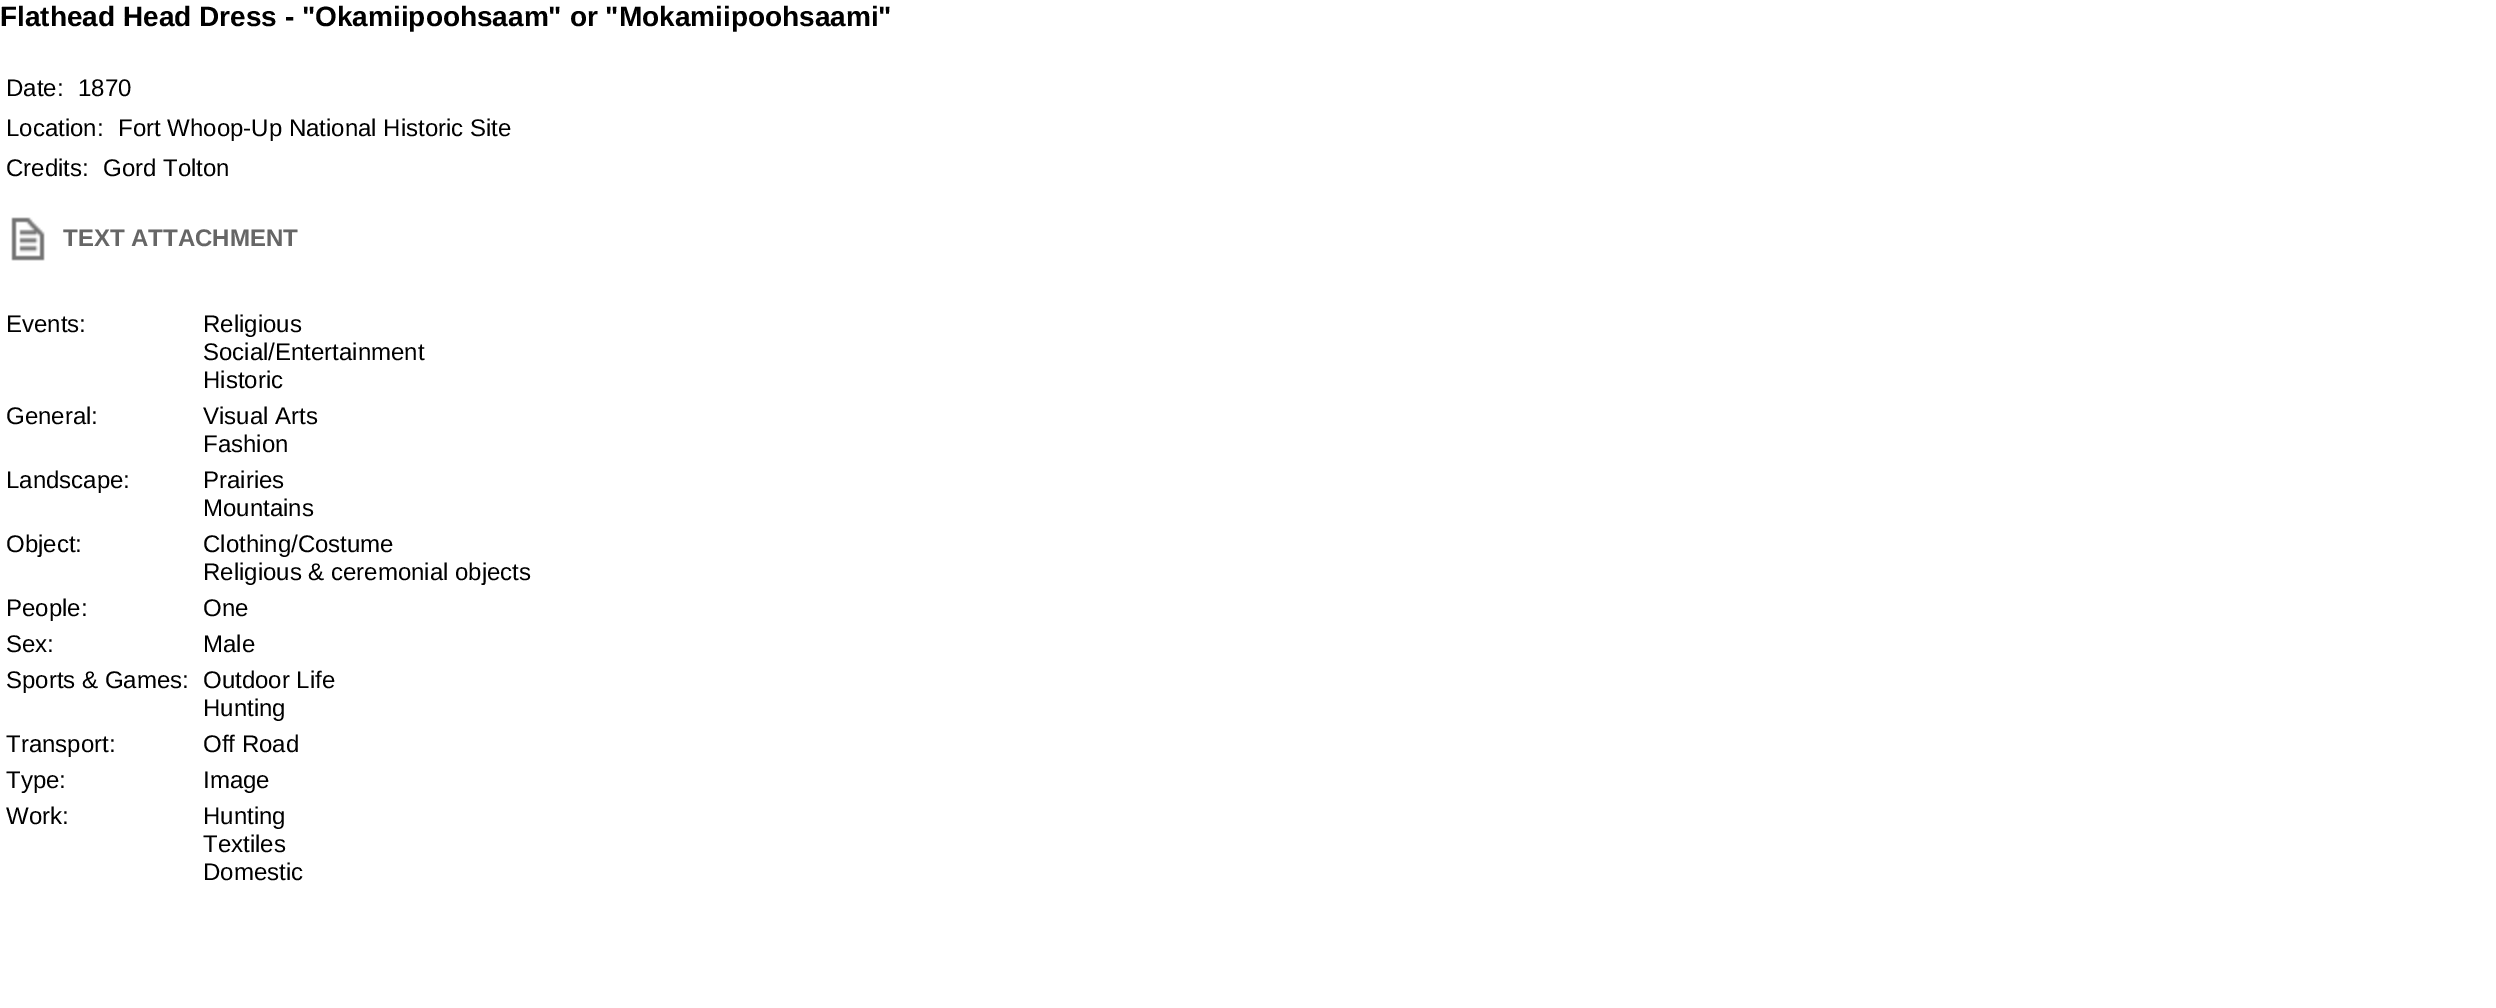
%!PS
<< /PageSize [2496 1008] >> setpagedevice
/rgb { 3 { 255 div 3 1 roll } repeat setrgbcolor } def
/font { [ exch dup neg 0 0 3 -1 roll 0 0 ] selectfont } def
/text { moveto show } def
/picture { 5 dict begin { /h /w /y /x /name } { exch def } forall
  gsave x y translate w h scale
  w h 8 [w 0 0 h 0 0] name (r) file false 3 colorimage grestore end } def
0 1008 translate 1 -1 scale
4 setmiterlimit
255 255 255 rgb
0 0 2496 1008 rectfill
(img_01.rgb) 11 217 34 44 picture
/LiberationSans-Bold 28 font
0 0 0 rgb
(Flathead Head Dress - "Okamiipoohsaam" or "Mokamiipoohsaami") 0 26 text
/LiberationSans-Regular 24 font
(Date:) 6 96 text
(1870) 78 96 text
(Location:) 6 136 text
(Fort Whoop-Up National Historic Site) 118 136 text
(Credits:) 6 176 text
(Gord Tolton) 103 176 text
/LiberationSans-Bold 24 font
102 102 102 rgb
(TEXT ATTACHMENT) 63 246 text
/LiberationSans-Regular 24 font
0 0 0 rgb
(Events:) 6 332 text
(Religious) 203 332 text
(Social/Entertainment) 203 360 text
(Historic) 203 388 text
(General:) 6 424 text
(Visual Arts) 203 424 text
(Fashion) 203 452 text
(Landscape:) 6 488 text
(Prairies) 203 488 text
(Mountains) 203 516 text
(Object:) 6 552 text
(Clothing/Costume) 203 552 text
(Religious & ceremonial objects) 203 580 text
(People:) 6 616 text
(One) 203 616 text
(Sex:) 6 652 text
(Male) 203 652 text
(Sports & Games:) 6 688 text
(Outdoor Life) 203 688 text
(Hunting) 203 716 text
(Transport:) 6 752 text
(Off Road) 203 752 text
(Type:) 6 788 text
(Image) 203 788 text
(Work:) 6 824 text
(Hunting) 203 824 text
(Textiles) 203 852 text
(Domestic) 203 880 text
showpage
